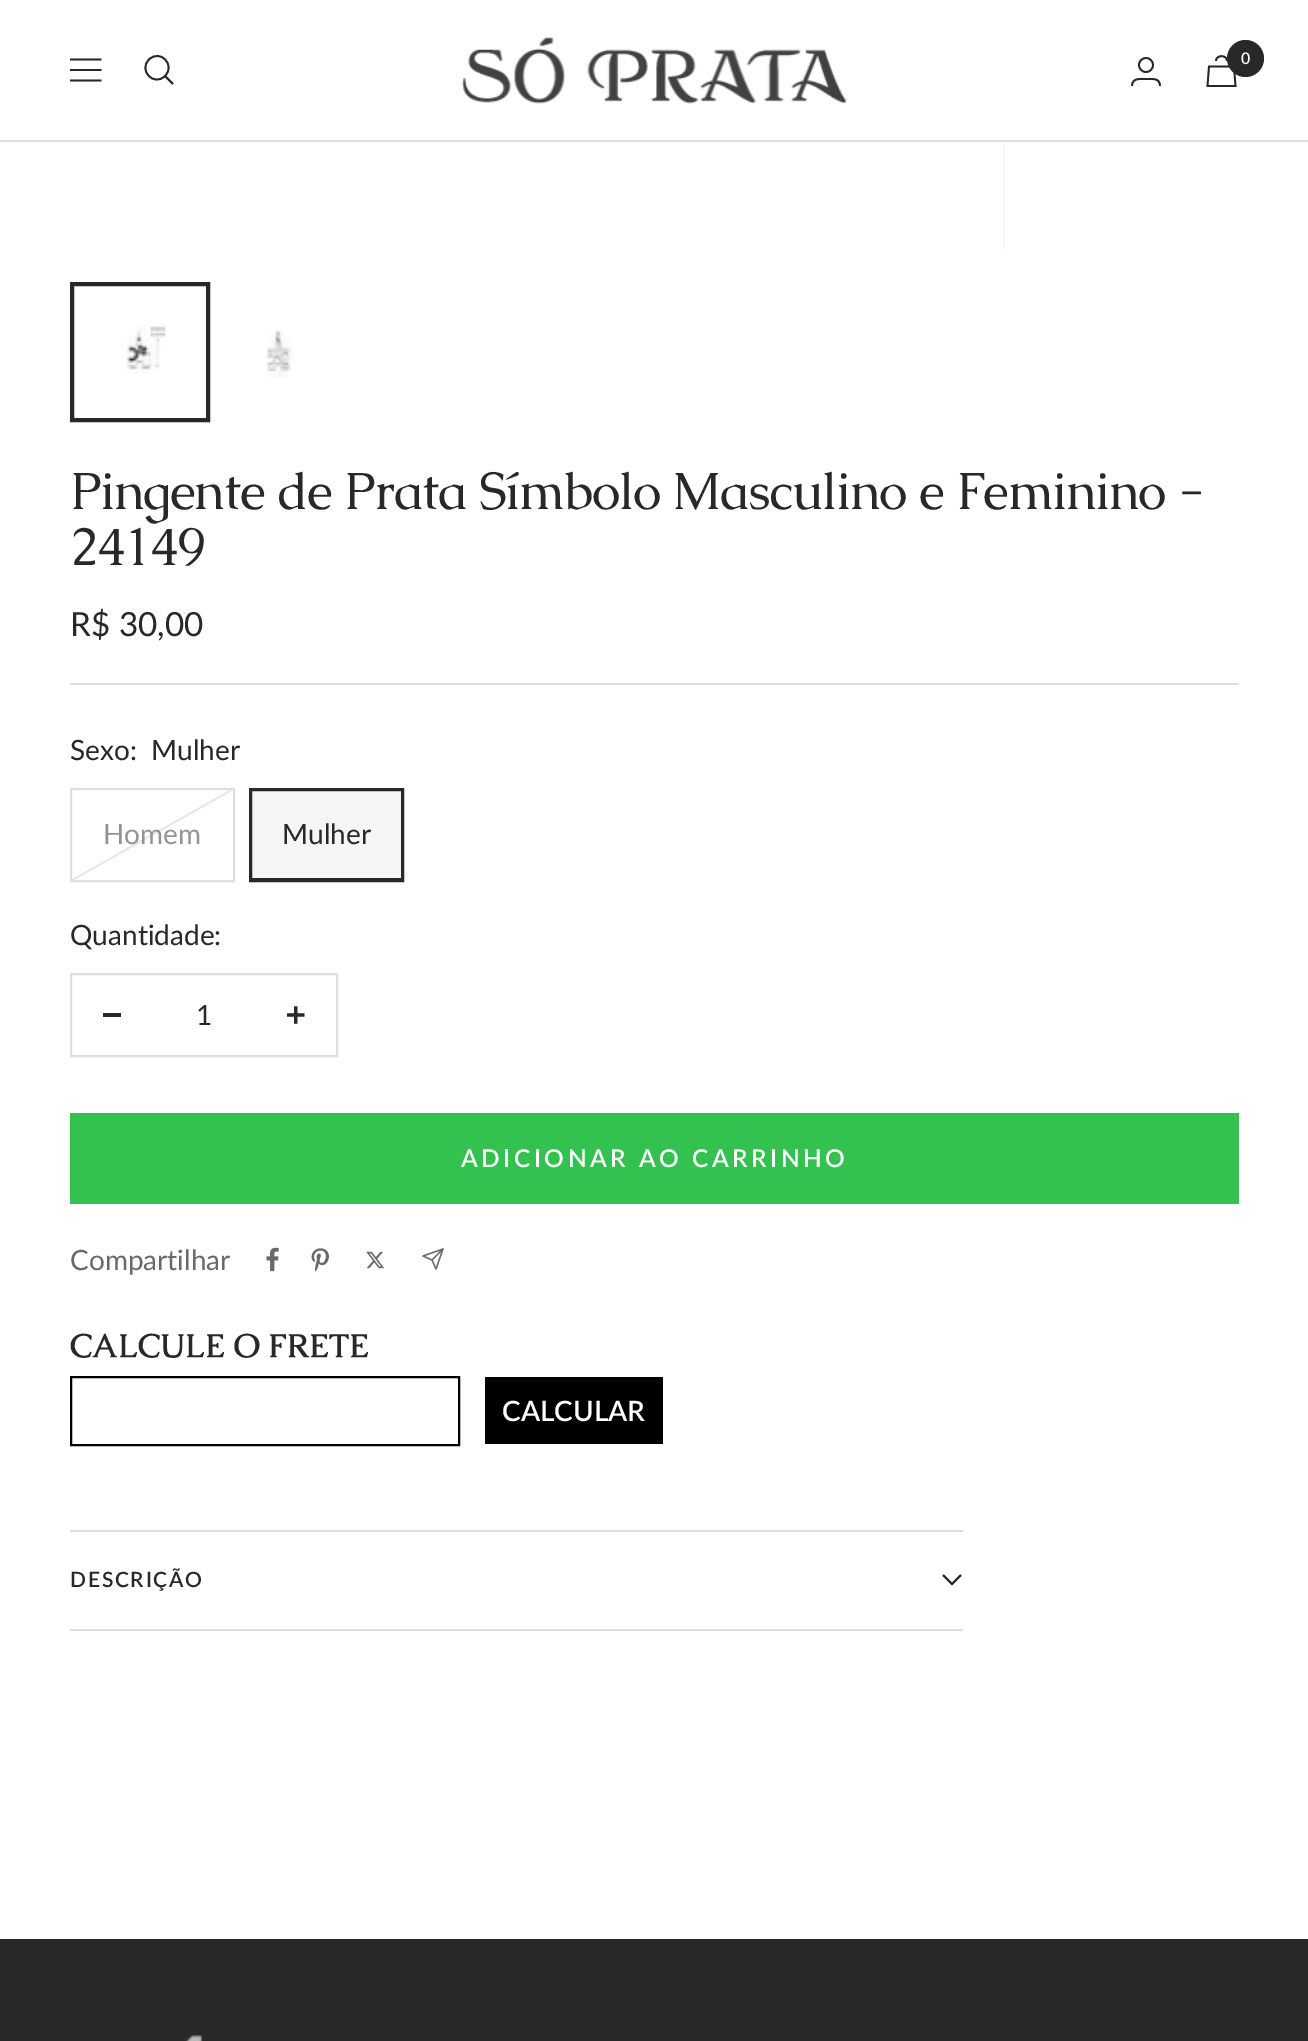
%!PS
<< /PageSize [1308 2041] >> setpagedevice
/rgb { 3 { 255 div 3 1 roll } repeat setrgbcolor } def
/font { [ exch dup neg 0 0 3 -1 roll 0 0 ] selectfont } def
/text { moveto show } def
/circle { newpath 0 360 arc closepath } def
/picture { 5 dict begin { /h /w /y /x /name } { exch def } forall
  gsave x y translate w h scale
  w h 8 [w 0 0 h 0 0] name (r) file false 3 colorimage grestore end } def
0 2041 translate 1 -1 scale
4 setmiterlimit
255 255 255 rgb
0 0 1308 2041 rectfill
223 223 223 rgb
0 140 1308 2 rectfill
40 40 40 rgb
1.8 setlinewidth
70 59.5 moveto 31.5 0 rlineto 70 80.5 moveto 31.5 0 rlineto closepath 70 70 moveto 31.5 0 rlineto closepath stroke
165 76 moveto 11 -11 -5 -27.5 -16 -16.5 rcurveto -11 11 5 27.5 16 16.5 rcurveto closepath 165 76 moveto 8 8 rlineto stroke
(img_01.rgb) 462 37 385 67 picture
1146 65 7 circle stroke
1132 86 moveto 0 -8.5 9 -7 14 -7 rcurveto 5.5 0 14 -1.5 14 7 rcurveto stroke
1209 66.5 moveto 25 0 rlineto 1.5 19.5 rlineto -28 0 rlineto closepath 1227 61 moveto 0 -6.5 -11 -6.5 -11 0 rcurveto stroke
1245.5 58.5 18.5 circle fill
245 245 245 rgb
1004 142 1 108 rectfill
(img_02.rgb) 126 323 40 51 picture
40 40 40 rgb
4 setlinewidth
72 284 136 136 rectstroke
(img_03.rgb) 266 330 27 48 picture
223 223 223 rgb
70 683 1169 2 rectfill
gsave 72 790 moveto 161 0 rlineto 0 90 rlineto -161 0 rlineto closepath clip newpath
<< /ShadingType 2 /ColorSpace /DeviceRGB /Coords [113 766 191 904] /Extend [true true] /Function << /FunctionType 3 /Domain [0 1] /Functions [<< /FunctionType 2 /Domain [0 1] /C0 [1 1 1] /C1 [1 1 1] /N 1 >> << /FunctionType 2 /Domain [0 1] /C0 [1 1 1] /C1 [0.875 0.875 0.875] /N 1 >> << /FunctionType 2 /Domain [0 1] /C0 [0.875 0.875 0.875] /C1 [1 1 1] /N 1 >> << /FunctionType 2 /Domain [0 1] /C0 [1 1 1] /C1 [1 1 1] /N 1 >>] /Bounds [0.49 0.5 0.51] /Encode [0 1 0 1 0 1 0 1] >> >> shfill grestore
2 setlinewidth
71 789 163 92 rectstroke
245 245 245 rgb
252 791 149 87 rectfill
40 40 40 rgb
250 789 153 92 rectstroke
251 790 151 89 rectstroke
223 223 223 rgb
71 974 266 82 rectstroke
40 40 40 rgb
103 1013 18 4 rectfill
(img_04.rgb) 287 1006 18 18 picture
51 194 79 rgb
70 1113 1169 91 rectfill
(img_05.rgb) 266 1247 13 25 picture
(img_06.rgb) 311 1248 18 24 picture
(img_07.rgb) 366 1251 19 18 picture
105 105 105 rgb
1.3 setlinewidth
1 setlinecap
1 setlinejoin
443 1249 moveto -7 20 rlineto -4 -9 rlineto 443 1249 moveto -20 7 rlineto 9 4 rlineto 443 1249 moveto -11 11 rlineto stroke
0 0 0 rgb
2 setlinewidth
0 setlinecap
0 setlinejoin
71 1377 388 68 rectstroke
485 1377 178 67 rectfill
223 223 223 rgb
70 1530 893 2 rectfill
70 1629 893 2 rectfill
40 40 40 rgb
1.8 setlinewidth
943 1575 moveto 9 9 rlineto 9 -9 rlineto stroke
0 1939 1308 102 rectfill
(img_08.rgb) 185 2035 18 6 picture
/Lato-SemiBold 16 font
255 255 255 rgb
(0) 1241 64 text
/Caudex-Regular 52.5 font
40 40 40 rgb
70 509 moveto -1.4 0 (Pingente de Prata Símbolo Masculino e Feminino -) ashow
70 565 moveto -1.4 0 (24149) ashow
/Lato-Regular 33.25 font
(R$ 30,00) 70 636 text
/Lato-Regular 28 font
(Sexo:) 70 760 text
(Mulher) 151 760 text
147 147 147 rgb
(Homem) 103 844 text
40 40 40 rgb
(Mulher) 282 844 text
(Quantidade:) 70 945 text
(1) 196 1025 text
/Lato-SemiBold 24.5 font
255 255 255 rgb
461 1167 moveto 3.5 0 (ADICIONAR AO CARRINHO) ashow
/Lato-Regular 28 font
105 105 105 rgb
(Compartilhar) 70 1270 text
/Caudex-Bold 32.75 font
40 40 40 rgb
(CALCULE O FRETE) 70 1357 text
/Lato-SemiBold 28 font
255 255 255 rgb
(CALCULAR) 502 1421 text
/Lato-SemiBold 21 font
40 40 40 rgb
70 1587 moveto 1.75 0 (DESCRIÇÃO) ashow
showpage
